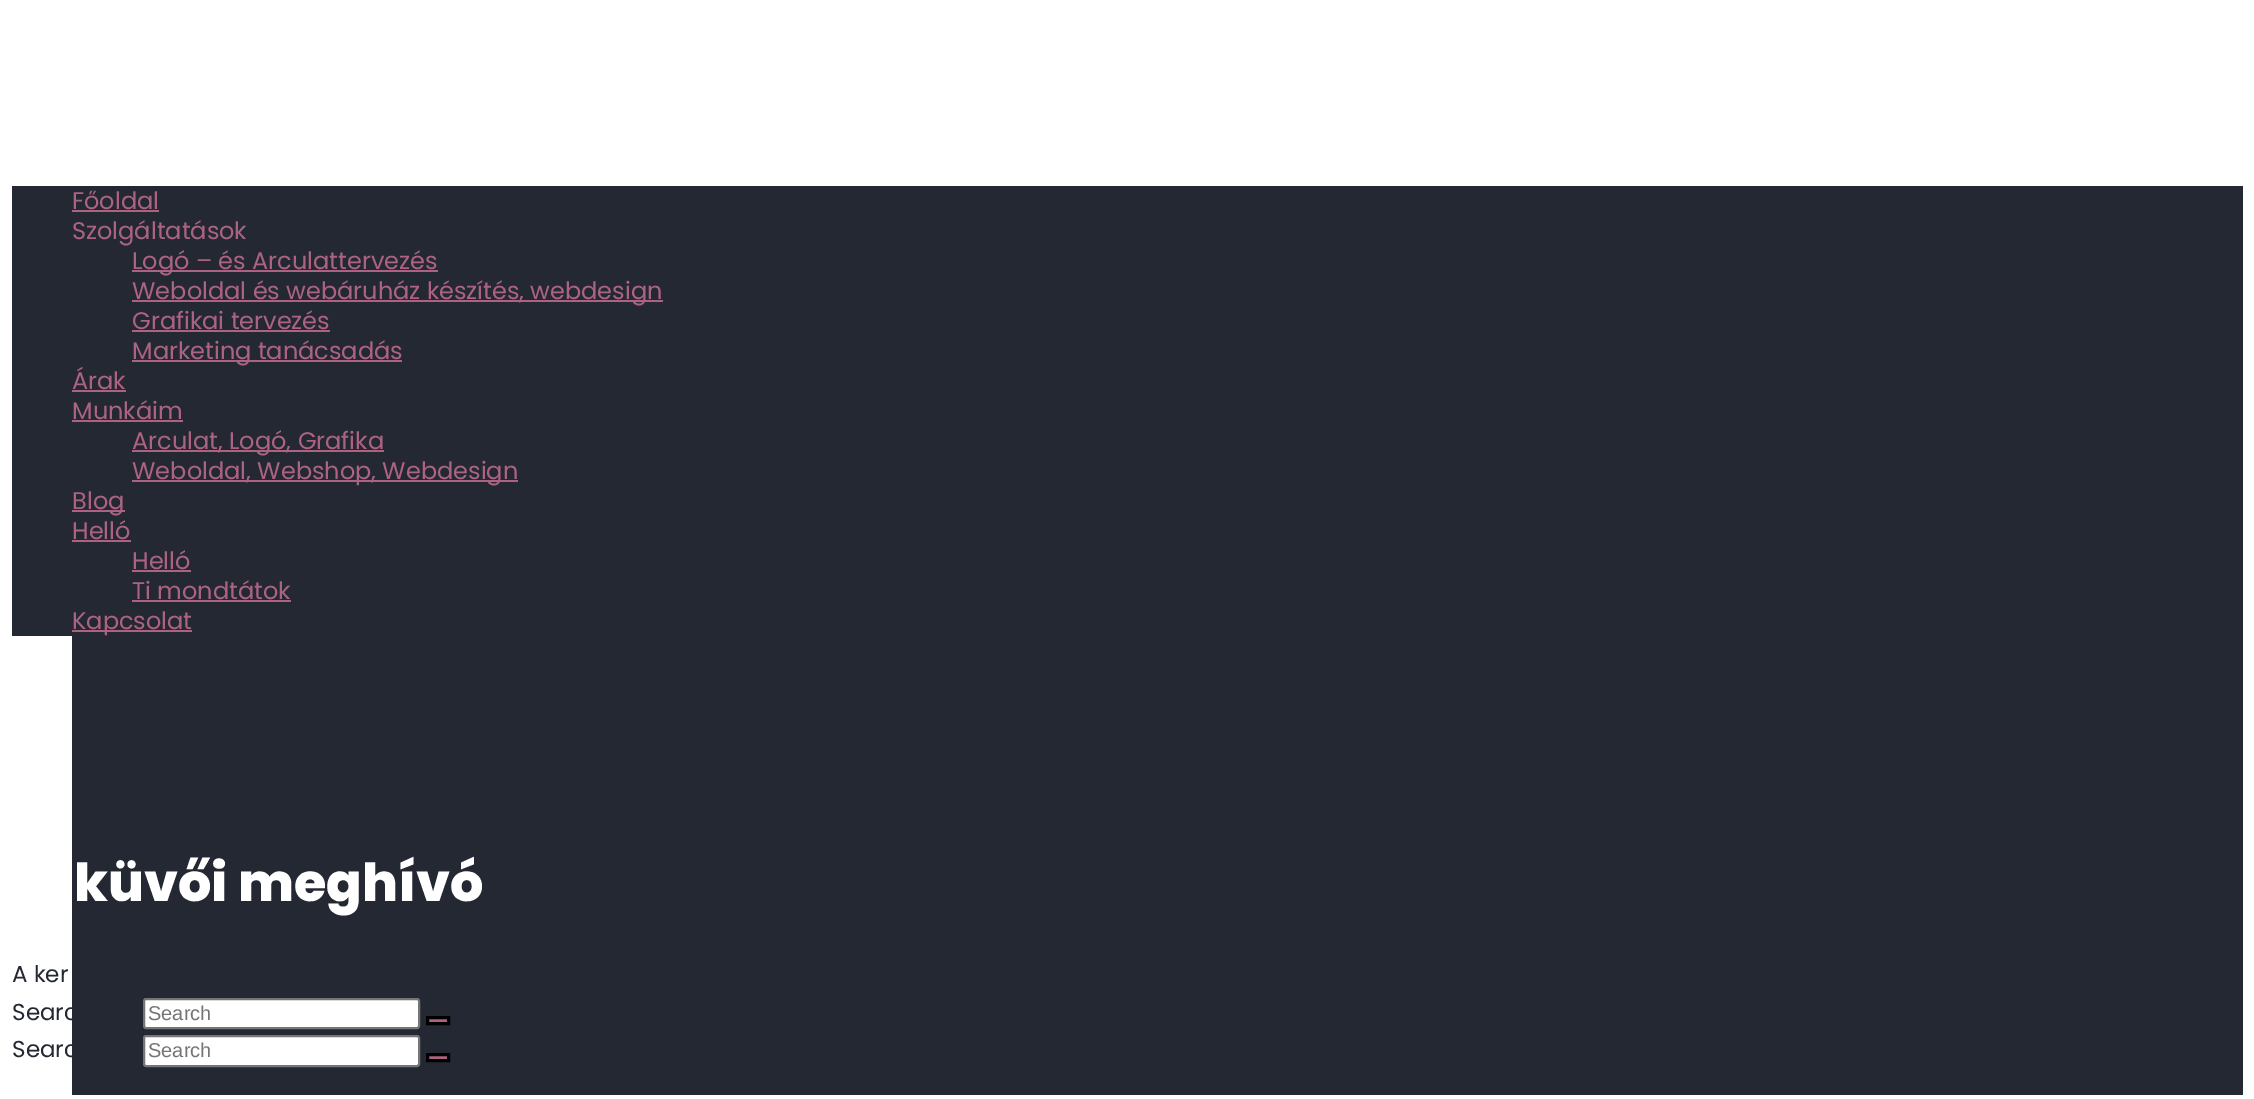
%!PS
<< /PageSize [2254 1099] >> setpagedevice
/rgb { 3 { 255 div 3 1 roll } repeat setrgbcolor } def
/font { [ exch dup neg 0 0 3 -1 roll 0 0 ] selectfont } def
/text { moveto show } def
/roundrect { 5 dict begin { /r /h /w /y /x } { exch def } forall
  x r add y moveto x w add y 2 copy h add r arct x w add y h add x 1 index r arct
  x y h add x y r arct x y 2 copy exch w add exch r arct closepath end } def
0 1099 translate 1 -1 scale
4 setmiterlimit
255 255 255 rgb
0 0 2254 1099 rectfill
36 40 51 rgb
12 186 2231 450 rectfill
172 99 130 rgb
72 210 87 2 rectfill
132 270 306 2 rectfill
132 300 531 2 rectfill
132 330 198 2 rectfill
132 360 270 2 rectfill
72 390 54 2 rectfill
72 420 111 2 rectfill
132 450 252 2 rectfill
132 480 386 2 rectfill
72 510 53 2 rectfill
72 540 59 2 rectfill
132 570 59 2 rectfill
132 600 159 2 rectfill
72 630 120 2 rectfill
36 40 51 rgb
72 636 2171 459 rectfill
255 255 255 rgb
144 999 275 29 2 roundrect gsave fill grestore
118 118 118 rgb
2 setlinewidth
stroke
172 99 130 rgb
427.5 1017.5 moveto 21 0 rlineto 0 6 rlineto -21 0 rlineto closepath gsave fill grestore
0 0 0 rgb
3 setlinewidth
stroke
255 255 255 rgb
144 1036 275 30 2 roundrect gsave fill grestore
118 118 118 rgb
2 setlinewidth
stroke
172 99 130 rgb
427.5 1054.5 moveto 21 0 rlineto 0 6 rlineto -21 0 rlineto closepath gsave fill grestore
0 0 0 rgb
3 setlinewidth
stroke
/Poppins-Regular 24 font
172 99 130 rgb
(Főoldal) 72 209 text
(Szolgáltatások) 72 239 text
(Logó – és Arculattervezés) 132 269 text
(Weboldal és webáruház készítés, webdesign) 132 299 text
(Grafikai tervezés) 132 329 text
(Marketing tanácsadás) 132 359 text
(Árak) 72 389 text
(Munkáim) 72 419 text
(Arculat, Logó, Grafika) 132 449 text
(Weboldal, Webshop, Webdesign) 132 479 text
(Blog) 72 509 text
(Helló) 72 539 text
(Helló) 132 569 text
(Ti mondtátok) 132 599 text
(Kapcsolat) 72 629 text
/Poppins-ExtraBold 52.5 font
255 255 255 rgb
(küvői meghívó) 74 901 text
/Poppins-Regular 23 font
36 40 51 rgb
(A ker) 12 982 text
(Searc) 12 1020 text
/LiberationSans-Regular 20 font
117 117 117 rgb
(Search) 148 1020 text
/Poppins-Regular 23 font
36 40 51 rgb
(Searc) 12 1057 text
/LiberationSans-Regular 20 font
117 117 117 rgb
(Search) 148 1057 text
showpage
